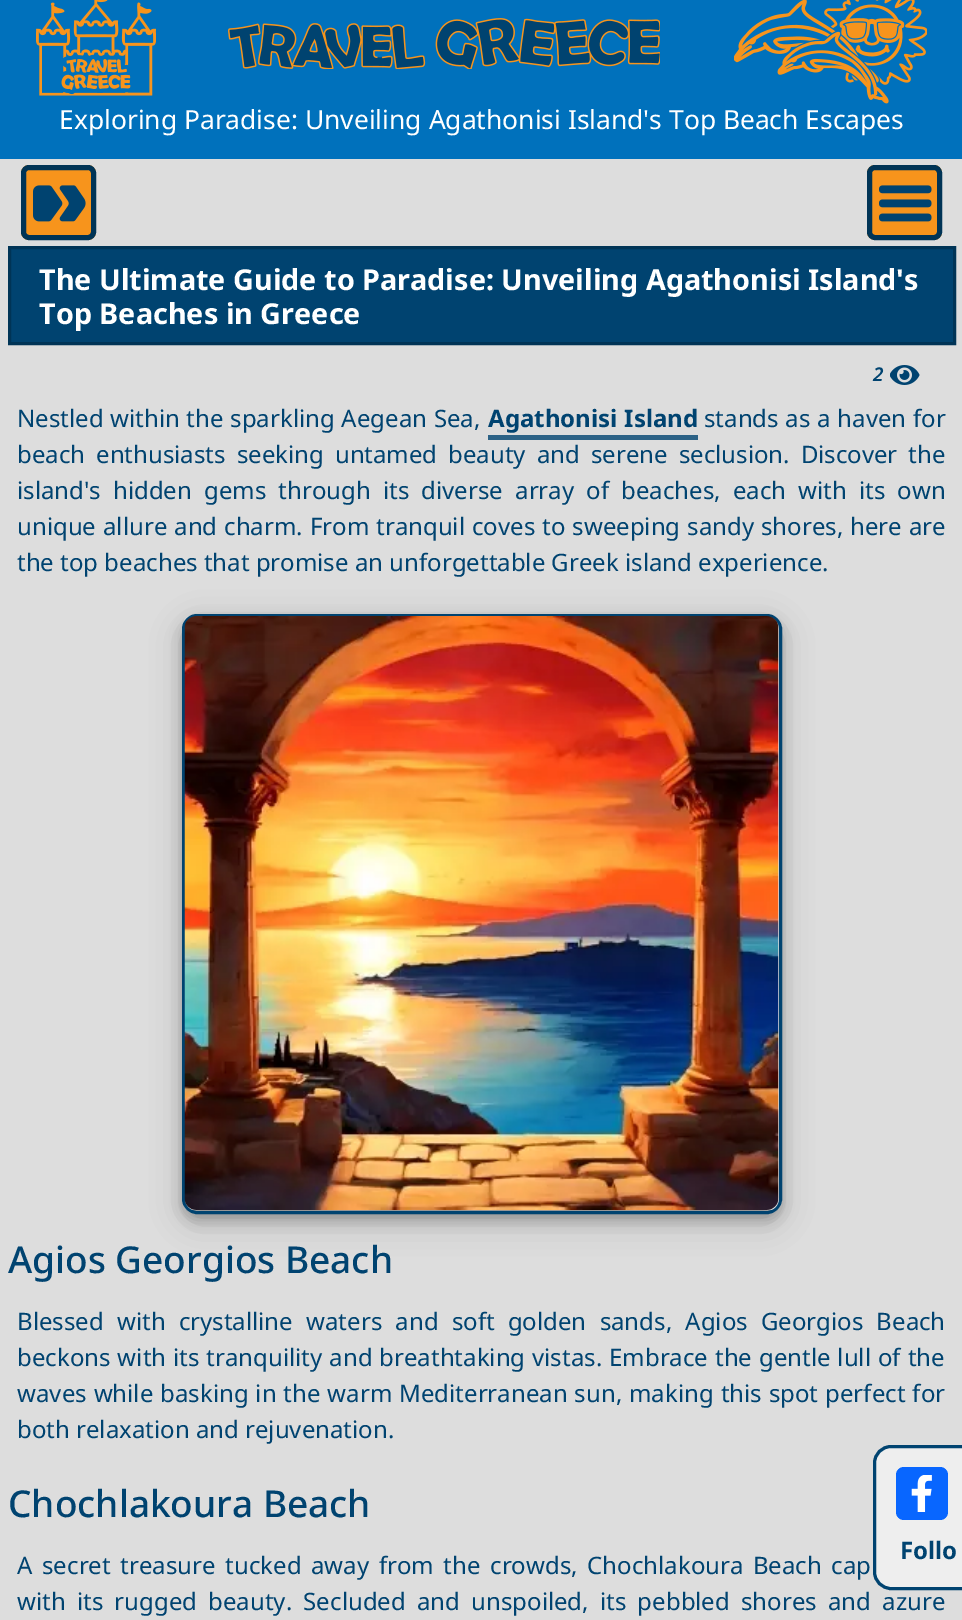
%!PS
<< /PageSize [962 1620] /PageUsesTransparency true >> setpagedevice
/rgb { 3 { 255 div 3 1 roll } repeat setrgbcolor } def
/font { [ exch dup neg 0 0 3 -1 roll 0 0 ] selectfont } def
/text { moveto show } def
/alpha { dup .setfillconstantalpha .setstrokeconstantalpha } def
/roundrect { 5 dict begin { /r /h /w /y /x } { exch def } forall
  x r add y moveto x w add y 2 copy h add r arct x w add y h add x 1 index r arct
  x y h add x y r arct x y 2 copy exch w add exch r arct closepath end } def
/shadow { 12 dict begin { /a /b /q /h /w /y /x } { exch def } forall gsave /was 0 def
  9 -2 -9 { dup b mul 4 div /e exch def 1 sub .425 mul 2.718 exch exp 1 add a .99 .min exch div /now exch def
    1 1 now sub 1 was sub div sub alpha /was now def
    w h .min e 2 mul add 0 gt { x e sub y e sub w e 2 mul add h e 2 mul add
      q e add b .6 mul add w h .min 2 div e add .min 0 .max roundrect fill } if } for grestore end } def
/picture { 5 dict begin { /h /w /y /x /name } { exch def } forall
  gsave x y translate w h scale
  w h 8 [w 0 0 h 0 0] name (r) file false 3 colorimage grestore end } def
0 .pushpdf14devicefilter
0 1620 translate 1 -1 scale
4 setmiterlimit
221 221 221 rgb
0 0 962 1620 rectfill
0 113 188 rgb
0 0 962 159 rectfill
(img_01.rgb) 36 0 120 96 picture
(img_02.rgb) 228 18 432 51 picture
(img_03.rgb) 734 0 193 104 picture
247 148 28 rgb
21 165 75 75 8 roundrect fill
(img_04.rgb) 33 185 53 37 picture
0 52 86 rgb
5 setlinewidth
23.5 167.5 70 70 5.5 roundrect stroke
247 148 28 rgb
867 165 75 75 8 roundrect fill
(img_05.rgb) 879 185 53 37 picture
0 52 86 rgb
869.5 167.5 70 70 5.5 roundrect stroke
0 67 112 rgb
9.5 247.5 moveto 945 0 rlineto 0 96 rlineto -945 0 rlineto closepath gsave fill grestore
0 52 86 rgb
3 setlinewidth
stroke
(img_06.rgb) 890 365 30 20 picture
44 98 134 rgb
488 435 210 5 rectfill
0 0 0 rgb
182 623 600 600 15 15 0.19 shadow
182 620 600 600 15 6 0.2 shadow
0 67 112 rgb
183.5 615.5 597 597 13.5 roundrect stroke
(img_07.rgb) 184 616 595 594 picture
238 238 238 rgb
891 1446.5 moveto 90.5 0 rlineto 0 142 rlineto -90.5 0 rlineto -9 0 -16.5 -7.5 -16.5 -16.5 rcurveto 0 -109 rlineto 0 -9 7.5 -16.5 16.5 -16.5 rcurveto closepath gsave fill grestore
0 67 112 rgb
stroke
8 102 255 rgb
896 1467 52 53 8 roundrect fill
(img_08.rgb) 911 1475 21 37 picture
/NotoSans-Regular 26.4 font
255 255 255 rgb
(Exploring Paradise: Unveiling Agathonisi Island's Top Beach Escapes) 59 129 text
/NotoSans-Bold 28.8 font
(The Ultimate Guide to Paradise: Unveiling Agathonisi Island's) 39 290 text
(Top Beaches in Greece) 39 324 text
/NotoSans-SemiBoldItalic 19 font
0 67 112 rgb
(2) 873 381 text
/NotoSans-Regular 24 font
17 427 moveto 0.5 0 32 (Nestled within the sparkling Aegean Sea,) widthshow
/NotoSans-Bold 24 font
488 427 moveto 1 0 32 (Agathonisi Island) widthshow
/NotoSans-Regular 24 font
704 427 moveto 0.5 0 32 (stands as a haven for) widthshow
17 463 moveto 4.75 0 32 (beach enthusiasts seeking untamed beauty and serene seclusion. Discover the) widthshow
17 499 moveto 5.9 0 32 (island's hidden gems through its diverse array of beaches, each with its own) widthshow
17 535 moveto 0.75 0 32 (unique allure and charm. From tranquil coves to sweeping sandy shores, here are) widthshow
(the top beaches that promise an unforgettable Greek island experience.) 17 571 text
/NotoSans-Medium 37 font
(Agios Georgios Beach) 8 1273 text
/NotoSans-Regular 24 font
17 1330 moveto 7 0 32 (Blessed with crystalline waters and soft golden sands, Agios Georgios Beach) widthshow
17 1366 moveto 0.75 0 32 (beckons with its tranquility and breathtaking vistas. Embrace the gentle lull of the) widthshow
17 1402 moveto 0.75 0 32 (waves while basking in the warm Mediterranean sun, making this spot perfect for) widthshow
(both relaxation and rejuvenation.) 17 1438 text
/NotoSans-Medium 37 font
(Chochlakoura Beach) 8 1517 text
/NotoSans-Regular 24 font
17 1574 moveto 3.4 0 32 (A secret treasure tucked away from the crowds, Chochlakoura Beach cap) widthshow
17 1610 moveto 5 0 32 (with its rugged beauty. Secluded and unspoiled, its pebbled shores and azure) widthshow
/NotoSans-Bold 24 font
(Follo) 900 1559 text
.poppdf14devicefilter showpage
